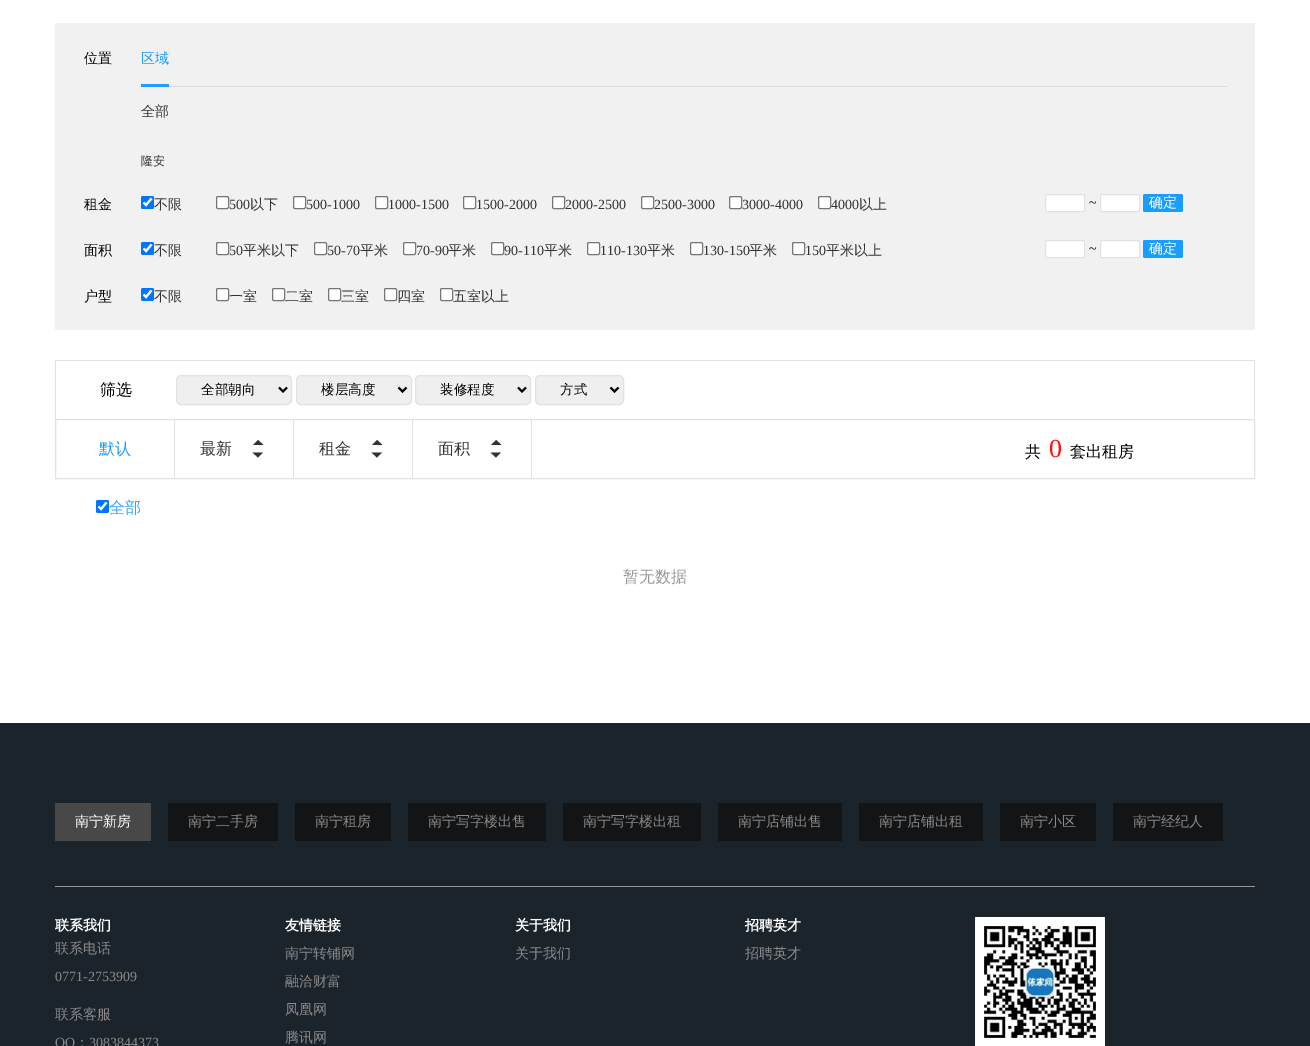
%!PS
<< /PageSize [1310 1046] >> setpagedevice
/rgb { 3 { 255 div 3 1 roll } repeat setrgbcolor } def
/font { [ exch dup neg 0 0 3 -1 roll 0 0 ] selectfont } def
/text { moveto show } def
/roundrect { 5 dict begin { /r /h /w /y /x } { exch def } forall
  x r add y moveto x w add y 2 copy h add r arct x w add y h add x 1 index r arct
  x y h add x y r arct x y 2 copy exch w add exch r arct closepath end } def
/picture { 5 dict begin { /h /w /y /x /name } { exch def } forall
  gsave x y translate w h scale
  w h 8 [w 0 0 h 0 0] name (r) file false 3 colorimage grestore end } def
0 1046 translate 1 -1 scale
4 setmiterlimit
255 255 255 rgb
0 0 1310 1046 rectfill
241 241 241 rgb
55 23 1200 307 rectfill
25 157 255 rgb
141 84 28 3 rectfill
220 220 220 rgb
169 86 1058 1 rectfill
0 117 255 rgb
141 196 13 13 2 roundrect fill
255 255 255 rgb
2.1 setlinewidth
143.5 202.5 moveto 2.5 2.5 rlineto 5.5 -6.5 rlineto stroke
216.5 196.5 12 12 1.5 roundrect gsave fill grestore
118 118 118 rgb
1 setlinewidth
stroke
255 255 255 rgb
293.5 196.5 12 12 1.5 roundrect gsave fill grestore
118 118 118 rgb
stroke
255 255 255 rgb
375.5 196.5 12 12 1.5 roundrect gsave fill grestore
118 118 118 rgb
stroke
255 255 255 rgb
463.5 196.5 12 12 1.5 roundrect gsave fill grestore
118 118 118 rgb
stroke
255 255 255 rgb
552.5 196.5 12 12 1.5 roundrect gsave fill grestore
118 118 118 rgb
stroke
255 255 255 rgb
641.5 196.5 12 12 1.5 roundrect gsave fill grestore
118 118 118 rgb
stroke
255 255 255 rgb
729.5 196.5 12 12 1.5 roundrect gsave fill grestore
118 118 118 rgb
stroke
255 255 255 rgb
818.5 196.5 12 12 1.5 roundrect gsave fill grestore
118 118 118 rgb
stroke
255 255 255 rgb
1045.5 194.5 39 17 1.5 roundrect gsave fill grestore
226 226 226 rgb
stroke
255 255 255 rgb
1100.5 194.5 39 17 1.5 roundrect gsave fill grestore
226 226 226 rgb
stroke
25 157 255 rgb
1143 194 40 18 2 roundrect fill
0 117 255 rgb
141 242 13 13 2 roundrect fill
255 255 255 rgb
2.1 setlinewidth
143.5 248.5 moveto 2.5 2.5 rlineto 5.5 -6.5 rlineto stroke
216.5 242.5 12 12 1.5 roundrect gsave fill grestore
118 118 118 rgb
1 setlinewidth
stroke
255 255 255 rgb
314.5 242.5 12 12 1.5 roundrect gsave fill grestore
118 118 118 rgb
stroke
255 255 255 rgb
403.5 242.5 12 12 1.5 roundrect gsave fill grestore
118 118 118 rgb
stroke
255 255 255 rgb
491.5 242.5 12 12 1.5 roundrect gsave fill grestore
118 118 118 rgb
stroke
255 255 255 rgb
587.5 242.5 12 12 1.5 roundrect gsave fill grestore
118 118 118 rgb
stroke
255 255 255 rgb
690.5 242.5 12 12 1.5 roundrect gsave fill grestore
118 118 118 rgb
stroke
255 255 255 rgb
792.5 242.5 12 12 1.5 roundrect gsave fill grestore
118 118 118 rgb
stroke
255 255 255 rgb
1045.5 240.5 39 17 1.5 roundrect gsave fill grestore
226 226 226 rgb
stroke
255 255 255 rgb
1100.5 240.5 39 17 1.5 roundrect gsave fill grestore
226 226 226 rgb
stroke
25 157 255 rgb
1143 240 40 18 2 roundrect fill
0 117 255 rgb
141 288 13 13 2 roundrect fill
255 255 255 rgb
2.1 setlinewidth
143.5 294.5 moveto 2.5 2.5 rlineto 5.5 -6.5 rlineto stroke
216.5 288.5 12 12 1.5 roundrect gsave fill grestore
118 118 118 rgb
1 setlinewidth
stroke
255 255 255 rgb
272.5 288.5 12 12 1.5 roundrect gsave fill grestore
118 118 118 rgb
stroke
255 255 255 rgb
328.5 288.5 12 12 1.5 roundrect gsave fill grestore
118 118 118 rgb
stroke
255 255 255 rgb
384.5 288.5 12 12 1.5 roundrect gsave fill grestore
118 118 118 rgb
stroke
255 255 255 rgb
440.5 288.5 12 12 1.5 roundrect gsave fill grestore
118 118 118 rgb
stroke
225 225 225 rgb
55 360 1200 1 rectfill
1254 360 1 59 rectfill
55 360 1 59 rectfill
239 239 239 rgb
176.5 375.5 115 29 4.5 roundrect gsave fill grestore
226 226 226 rgb
stroke
0 0 0 rgb
2 setlinewidth
279 387.5 moveto 4 4 rlineto 4 -4 rlineto stroke
239 239 239 rgb
296.5 375.5 115 29 4.5 roundrect gsave fill grestore
226 226 226 rgb
1 setlinewidth
stroke
0 0 0 rgb
2 setlinewidth
398.5 387.5 moveto 4 4 rlineto 4 -4 rlineto stroke
239 239 239 rgb
415.5 375.5 115 29 4.5 roundrect gsave fill grestore
226 226 226 rgb
1 setlinewidth
stroke
0 0 0 rgb
2 setlinewidth
518 387.5 moveto 4 4 rlineto 4 -4 rlineto stroke
239 239 239 rgb
535.5 375.5 88 29 4.5 roundrect gsave fill grestore
226 226 226 rgb
1 setlinewidth
stroke
0 0 0 rgb
2 setlinewidth
610.5 387.5 moveto 4 4 rlineto 4 -4 rlineto stroke
225 225 225 rgb
1 setlinewidth
55.5 419.5 1199 59 rectstroke
174 420 1 58 rectfill
293 420 1 58 rectfill
51 51 51 rgb
258 440 moveto -5 5 rlineto 10.5 0 rlineto closepath 263 452.5 moveto -10.5 0 rlineto 5.5 5 rlineto closepath fill
225 225 225 rgb
412 420 1 58 rectfill
51 51 51 rgb
377 440 moveto -5 5 rlineto 10.5 0 rlineto closepath 382 452.5 moveto -10.5 0 rlineto 5.5 5 rlineto closepath fill
225 225 225 rgb
531 420 1 58 rectfill
51 51 51 rgb
496 440 moveto -5 5 rlineto 10.5 0 rlineto closepath 501 452.5 moveto -10.5 0 rlineto 5.5 5 rlineto closepath fill
0 117 255 rgb
96 500 13 13 2 roundrect fill
255 255 255 rgb
2.1 setlinewidth
98.5 506.5 moveto 2.5 2.5 rlineto 5.5 -6.5 rlineto stroke
27 36 43 rgb
0 723 1310 323 rectfill
72 72 72 rgb
55 803 96 38 rectfill
18 20 22 rgb
168 803 110 38 rectfill
295 803 96 38 rectfill
408 803 138 38 rectfill
563 803 138 38 rectfill
718 803 124 38 rectfill
859 803 124 38 rectfill
1000 803 96 38 rectfill
1113 803 110 38 rectfill
153 153 153 rgb
55 886 1200 1 rectfill
(img_01.rgb) 975 917 130 129 picture
/WenQuanYiZenHei-Medium 14 font
0 0 0 rgb
(位置) 84 63 text
25 157 255 rgb
(区域) 141 63 text
51 51 51 rgb
(全部) 141 116 text
/WenQuanYiZenHei-Medium 12 font
(隆安) 141 165 text
/WenQuanYiZenHei-Medium 14 font
0 0 0 rgb
(租金) 84 209 text
51 51 51 rgb
(不限) 154 209 text
/LiberationSerif-Regular 14 font
(500) 229 209 text
/WenQuanYiZenHei-Medium 14 font
(以下) 250 209 text
/LiberationSerif-Regular 14 font
(500-1000) 306 209 text
(1000-1500) 388 209 text
(1500-2000) 476 209 text
(2000-2500) 565 209 text
(2500-3000) 654 209 text
(3000-4000) 742 209 text
(4000) 831 209 text
/WenQuanYiZenHei-Medium 14 font
(以上) 859 209 text
/LiberationSerif-Regular 14 font
0 0 0 rgb
(~) 1089 207 text
/WenQuanYiZenHei-Medium 14 font
255 255 255 rgb
(确定) 1149 207 text
0 0 0 rgb
(面积) 84 255 text
51 51 51 rgb
(不限) 154 255 text
/LiberationSerif-Regular 14 font
(50) 229 255 text
/WenQuanYiZenHei-Medium 14 font
(平米以下) 243 255 text
/LiberationSerif-Regular 14 font
(50-70) 327 255 text
/WenQuanYiZenHei-Medium 14 font
(平米) 360 255 text
/LiberationSerif-Regular 14 font
(70-90) 416 255 text
/WenQuanYiZenHei-Medium 14 font
(平米) 448 255 text
/LiberationSerif-Regular 14 font
(90-110) 504 255 text
/WenQuanYiZenHei-Medium 14 font
(平米) 544 255 text
/LiberationSerif-Regular 14 font
(110-130) 600 255 text
/WenQuanYiZenHei-Medium 14 font
(平米) 647 255 text
/LiberationSerif-Regular 14 font
(130-150) 703 255 text
/WenQuanYiZenHei-Medium 14 font
(平米) 749 255 text
/LiberationSerif-Regular 14 font
(150) 805 255 text
/WenQuanYiZenHei-Medium 14 font
(平米以上) 826 255 text
/LiberationSerif-Regular 14 font
0 0 0 rgb
(~) 1089 253 text
/WenQuanYiZenHei-Medium 14 font
255 255 255 rgb
(确定) 1149 253 text
0 0 0 rgb
(户型) 84 301 text
51 51 51 rgb
(不限) 154 301 text
(一室) 229 301 text
(二室) 285 301 text
(三室) 341 301 text
(四室) 397 301 text
(五室以上) 453 301 text
/WenQuanYiZenHei-Medium 16 font
0 0 0 rgb
(筛选) 100 395 text
/WenQuanYiZenHei-Medium 13.5 font
(全部朝向) 201 394 text
(楼层高度) 321 394 text
(装修程度) 440 394 text
(方式) 560 394 text
/WenQuanYiZenHei-Medium 16 font
25 157 255 rgb
(默认) 99 454 text
51 51 51 rgb
(最新) 200 454 text
(租金) 319 454 text
(面积) 438 454 text
0 0 0 rgb
(共) 1025 457 text
/LiberationSerif-Regular 26 font
255 15 15 rgb
(0) 1049 457 text
/WenQuanYiZenHei-Medium 16 font
0 0 0 rgb
(套出租房) 1070 457 text
46 164 255 rgb
(全部) 109 513 text
153 153 153 rgb
(暂无数据) 623 582 text
/WenQuanYiZenHei-Medium 14 font
255 255 255 rgb
(南宁新房) 75 826 text
139 137 137 rgb
(南宁二手房) 188 826 text
(南宁租房) 315 826 text
(南宁写字楼出售) 428 826 text
(南宁写字楼出租) 583 826 text
(南宁店铺出售) 738 826 text
(南宁店铺出租) 879 826 text
(南宁小区) 1020 826 text
(南宁经纪人) 1133 826 text
/WenQuanYiZenHei-Bold 14 font
255 255 255 rgb
(联系我们) 55 930 text
/WenQuanYiZenHei-Medium 14 font
139 137 137 rgb
(联系电话) 55 953 text
/LiberationSerif-Regular 14 font
(0771-2753909) 55 981 text
/WenQuanYiZenHei-Medium 14 font
(联系客服) 55 1019 text
/LiberationSerif-Regular 14 font
(QQ) 55 1047 text
/WenQuanYiZenHei-Medium 14 font
(：) 75 1047 text
/LiberationSerif-Regular 14 font
(3083844373) 89 1047 text
/WenQuanYiZenHei-Bold 14 font
255 255 255 rgb
(友情链接) 285 930 text
/WenQuanYiZenHei-Medium 14 font
139 137 137 rgb
(南宁转铺网) 285 958 text
(融洽财富) 285 986 text
(凤凰网) 285 1014 text
(腾讯网) 285 1042 text
/WenQuanYiZenHei-Bold 14 font
255 255 255 rgb
(关于我们) 515 930 text
/WenQuanYiZenHei-Medium 14 font
139 137 137 rgb
(关于我们) 515 958 text
/WenQuanYiZenHei-Bold 14 font
255 255 255 rgb
(招聘英才) 745 930 text
/WenQuanYiZenHei-Medium 14 font
139 137 137 rgb
(招聘英才) 745 958 text
showpage
